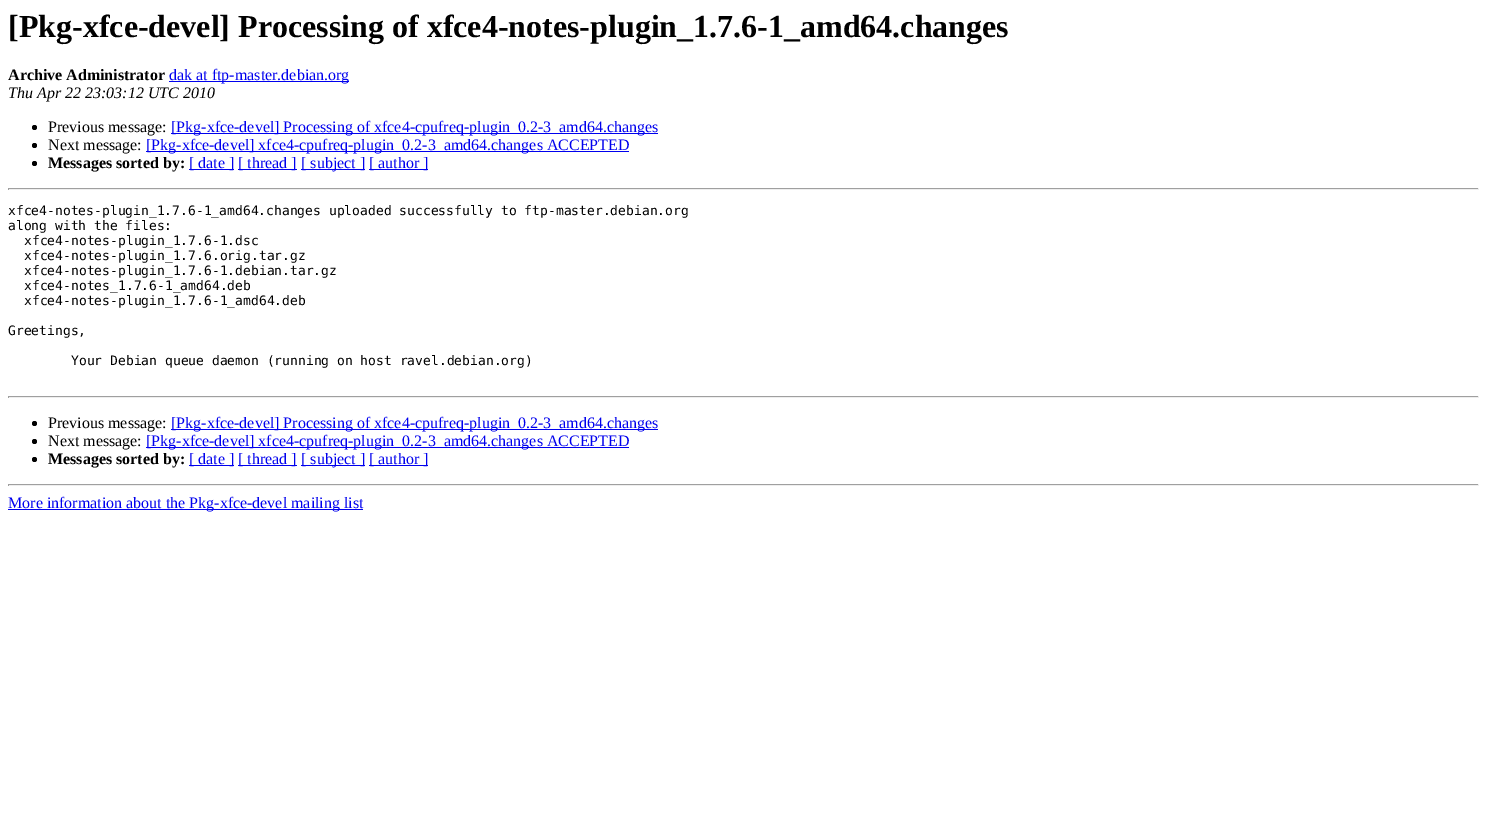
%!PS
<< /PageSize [1487 837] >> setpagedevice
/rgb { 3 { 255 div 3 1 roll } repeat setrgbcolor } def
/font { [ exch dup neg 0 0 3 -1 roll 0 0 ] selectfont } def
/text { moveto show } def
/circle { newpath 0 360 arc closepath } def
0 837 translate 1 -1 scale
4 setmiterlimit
255 255 255 rgb
0 0 1487 837 rectfill
0 0 238 rgb
169 81 180 1 rectfill
0 0 0 rgb
34.5 127.5 2.5 circle fill
0 0 238 rgb
171 133 487 1 rectfill
0 0 0 rgb
34.5 145.5 2.5 circle fill
0 0 238 rgb
146 151 483 1 rectfill
0 0 0 rgb
34.5 163.5 2.5 circle fill
0 0 238 rgb
189 169 45 1 rectfill
238 169 59 1 rectfill
301 169 64 1 rectfill
369 169 59 1 rectfill
159 159 159 rgb
8 188 1471 1 rectfill
238 238 238 rgb
1478 188 1 2 rectfill
8 189 1471 1 rectfill
159 159 159 rgb
8 188 1 2 rectfill
8 396 1471 1 rectfill
238 238 238 rgb
1478 396 1 2 rectfill
8 397 1471 1 rectfill
159 159 159 rgb
8 396 1 2 rectfill
0 0 0 rgb
34.5 423.5 2.5 circle fill
0 0 238 rgb
171 429 487 1 rectfill
0 0 0 rgb
34.5 441.5 2.5 circle fill
0 0 238 rgb
146 447 483 1 rectfill
0 0 0 rgb
34.5 459.5 2.5 circle fill
0 0 238 rgb
189 465 45 1 rectfill
238 465 59 1 rectfill
301 465 64 1 rectfill
369 465 59 1 rectfill
159 159 159 rgb
8 484 1471 1 rectfill
238 238 238 rgb
1478 484 1 2 rectfill
8 485 1471 1 rectfill
159 159 159 rgb
8 484 1 2 rectfill
0 0 238 rgb
8 509 355 1 rectfill
/LiberationSerif-Bold 32 font
0 0 0 rgb
([Pkg-xfce-devel] Processing of xfce4-notes-plugin_1.7.6-1_amd64.changes) 8 37 text
/LiberationSerif-Bold 16 font
(Archive Administrator) 8 80 text
/LiberationSerif-Regular 16 font
0 0 238 rgb
(dak at ftp-master.debian.org) 169 80 text
/LiberationSerif-Italic 16 font
0 0 0 rgb
(Thu Apr 22 23:03:12 UTC 2010) 8 98 text
/LiberationSerif-Regular 16 font
(Previous message:) 48 132 text
0 0 238 rgb
([Pkg-xfce-devel] Processing of xfce4-cpufreq-plugin_0.2-3_amd64.changes) 171 132 text
0 0 0 rgb
(Next message:) 48 150 text
0 0 238 rgb
([Pkg-xfce-devel] xfce4-cpufreq-plugin_0.2-3_amd64.changes ACCEPTED) 146 150 text
/LiberationSerif-Bold 16 font
0 0 0 rgb
(Messages sorted by:) 48 168 text
/LiberationSerif-Regular 16 font
0 0 238 rgb
([ date ]) 189 168 text
([ thread ]) 238 168 text
([ subject ]) 301 168 text
([ author ]) 369 168 text
/DejaVuSansMono-Regular 13 font
0 0 0 rgb
(xfce4-notes-plugin_1.7.6-1_amd64.changes uploaded successfully to ftp-master.debian.org) 8 215 text
(along with the files:) 8 230 text
(xfce4-notes-plugin_1.7.6-1.dsc) 24 245 text
(xfce4-notes-plugin_1.7.6.orig.tar.gz) 24 260 text
(xfce4-notes-plugin_1.7.6-1.debian.tar.gz) 24 275 text
(xfce4-notes_1.7.6-1_amd64.deb) 24 290 text
(xfce4-notes-plugin_1.7.6-1_amd64.deb) 24 305 text
(Greetings,) 8 335 text
(Your Debian queue daemon \(running on host ravel.debian.org\)) 71 365 text
/LiberationSerif-Regular 16 font
(Previous message:) 48 428 text
0 0 238 rgb
([Pkg-xfce-devel] Processing of xfce4-cpufreq-plugin_0.2-3_amd64.changes) 171 428 text
0 0 0 rgb
(Next message:) 48 446 text
0 0 238 rgb
([Pkg-xfce-devel] xfce4-cpufreq-plugin_0.2-3_amd64.changes ACCEPTED) 146 446 text
/LiberationSerif-Bold 16 font
0 0 0 rgb
(Messages sorted by:) 48 464 text
/LiberationSerif-Regular 16 font
0 0 238 rgb
([ date ]) 189 464 text
([ thread ]) 238 464 text
([ subject ]) 301 464 text
([ author ]) 369 464 text
(More information about the Pkg-xfce-devel mailing list) 8 508 text
showpage
